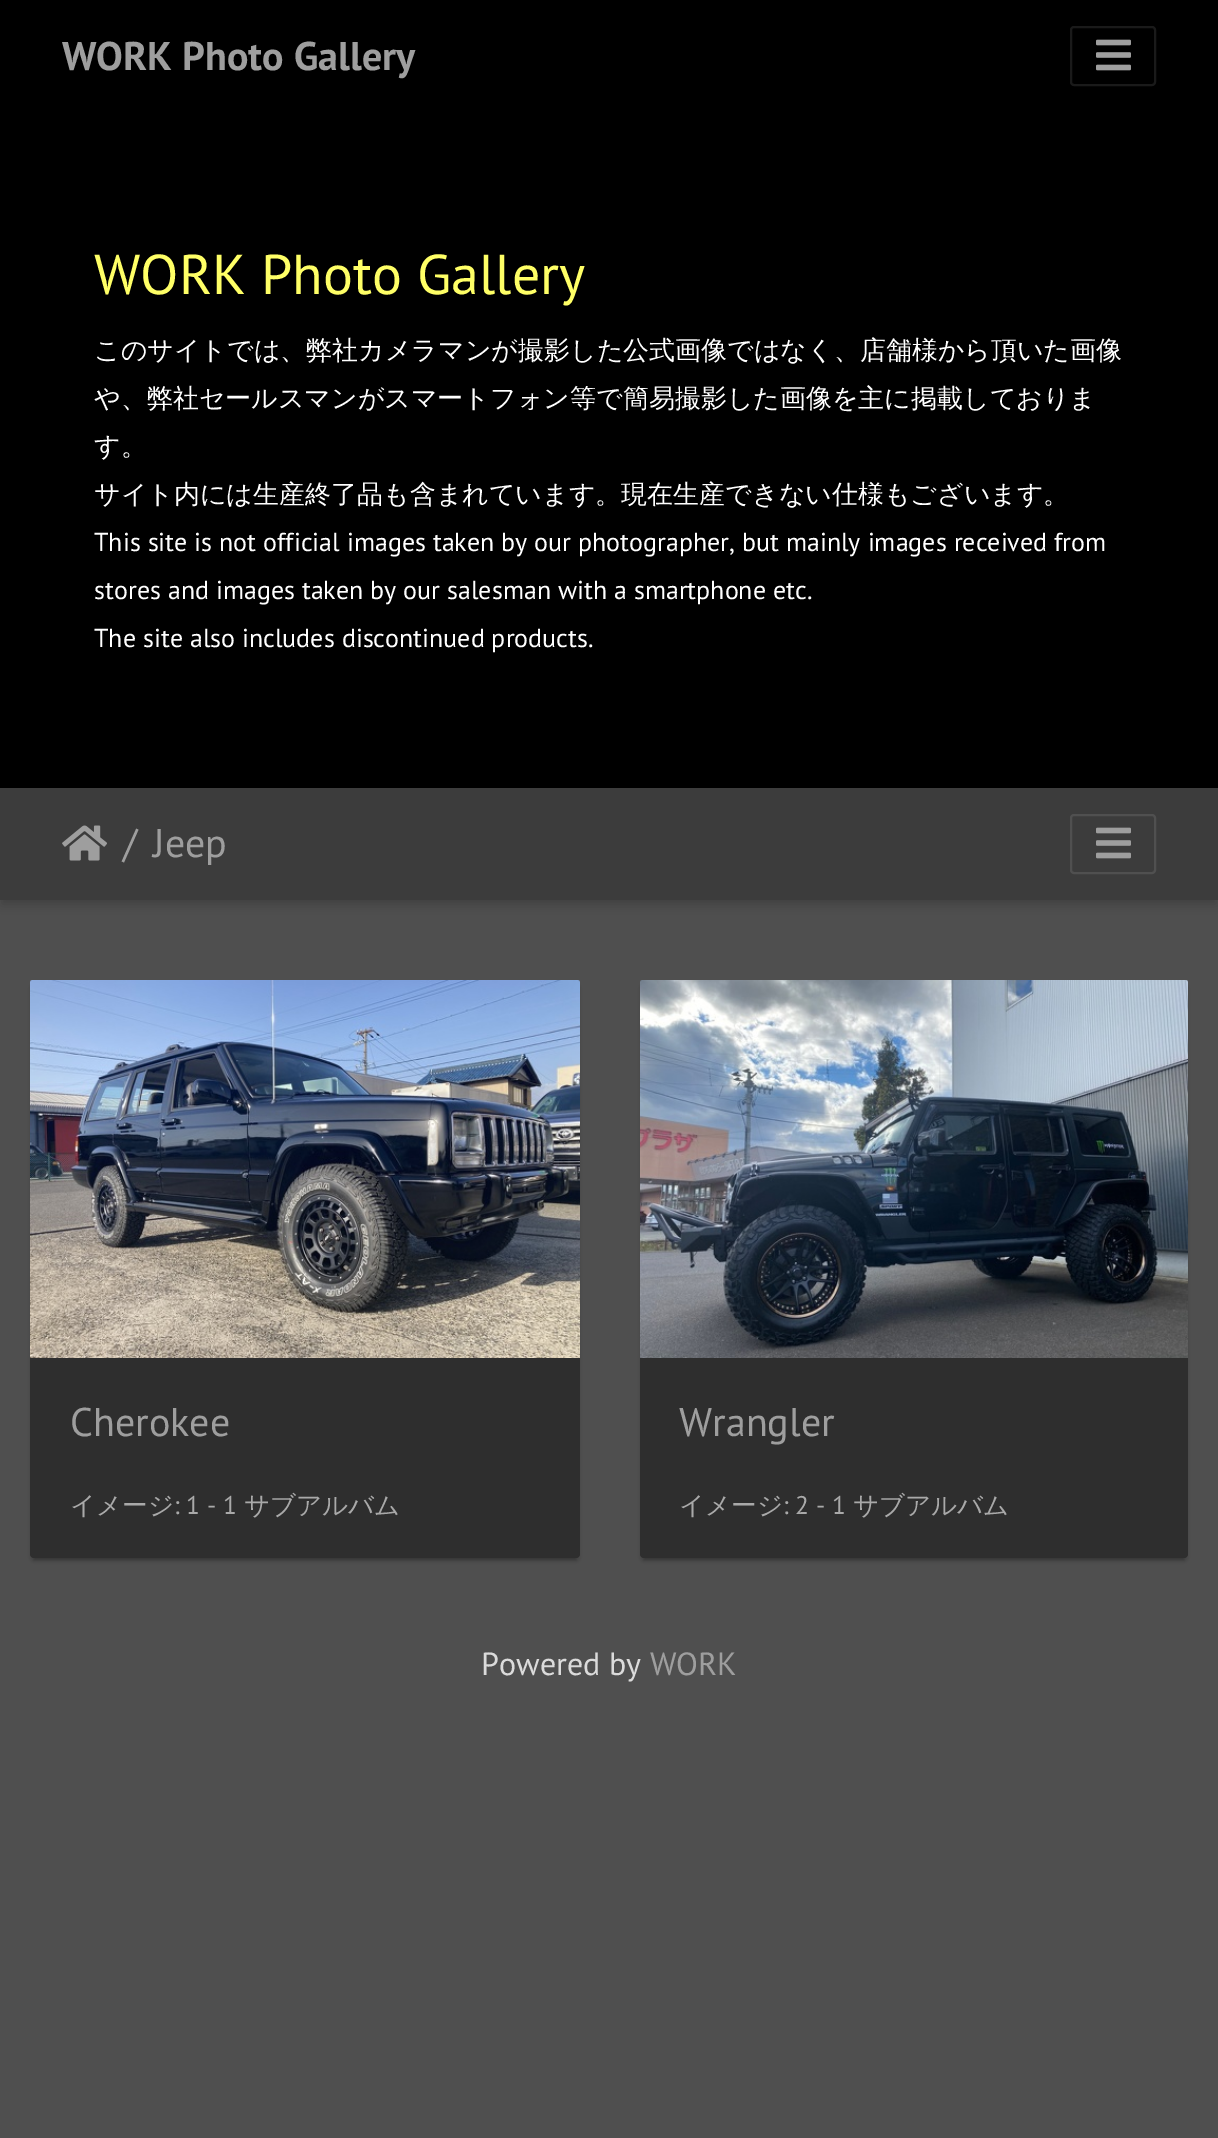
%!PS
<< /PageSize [1218 2138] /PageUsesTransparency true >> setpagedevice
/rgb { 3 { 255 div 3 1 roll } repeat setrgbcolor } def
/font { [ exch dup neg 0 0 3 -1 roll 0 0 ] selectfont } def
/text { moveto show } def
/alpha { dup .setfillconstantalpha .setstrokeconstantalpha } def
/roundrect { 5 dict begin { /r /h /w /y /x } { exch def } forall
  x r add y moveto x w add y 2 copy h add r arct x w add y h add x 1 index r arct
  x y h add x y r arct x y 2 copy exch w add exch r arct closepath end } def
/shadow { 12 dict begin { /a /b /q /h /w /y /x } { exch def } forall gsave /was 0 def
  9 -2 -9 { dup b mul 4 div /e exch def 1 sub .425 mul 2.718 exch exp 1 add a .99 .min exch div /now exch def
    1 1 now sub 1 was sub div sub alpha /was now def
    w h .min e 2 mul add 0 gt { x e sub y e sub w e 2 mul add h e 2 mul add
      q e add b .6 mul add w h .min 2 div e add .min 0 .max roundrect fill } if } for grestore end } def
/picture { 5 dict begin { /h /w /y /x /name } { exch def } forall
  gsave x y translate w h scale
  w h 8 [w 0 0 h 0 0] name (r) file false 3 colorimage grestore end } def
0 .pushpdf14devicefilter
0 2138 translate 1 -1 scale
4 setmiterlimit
79 79 79 rgb
0 0 1218 2138 rectfill
0 0 0 rgb
0 0 1218 788 rectfill
26 26 26 rgb
2 setlinewidth
1071 27 84 58 3 roundrect stroke
(img_01.rgb) 1096 39 35 32 picture
0 0 0 rgb
2 796 1214 108 0 5 0.2 shadow
60 60 60 rgb
0 788 1218 112 rectfill
(img_02.rgb) 62 825 45 36 picture
80 80 80 rgb
1071 815 84 58 3 roundrect stroke
(img_03.rgb) 1096 827 35 32 picture
0 0 0 rgb
34 990 542 570 0 1 0.2 shadow
30 984 550 578 4 2 0.14 shadow
46 46 46 rgb
30 980 550 578 4 roundrect fill
(img_04.rgb) 30 980 550 378 picture
0 0 0 rgb
644 990 540 570 0 1 0.2 shadow
640 984 548 578 4 2 0.14 shadow
46 46 46 rgb
640 980 548 578 4 roundrect fill
(img_05.rgb) 640 980 548 378 picture
/PTSans-Bold 40 font
158 158 158 rgb
(WORK Photo Gallery) 62 70 text
/PTSans-Regular 56 font
255 255 102 rgb
(WORK Photo Gallery) 94 294 text
/WenQuanYiZenHei-Medium 26 font
255 255 255 rgb
(このサイトでは、弊社カメラマンが撮影した公式画像ではなく、店舗様から頂いた画像) 94 359 text
(や、弊社セールスマンがスマートフォン等で簡易撮影した画像を主に掲載しておりま) 94 407 text
(す。) 94 455 text
(サイト内には生産終了品も含まれています。現在生産できない仕様もございます。) 94 503 text
/PTSans-Regular 26 font
(This site is not official images taken by our photographer, but mainly images received from) 94 551 text
(stores and images taken by our salesman with a smartphone etc.) 94 599 text
(The site also includes discontinued products.) 94 647 text
/PTSans-Regular 40 font
158 158 158 rgb
(/) 123 857 text
(Jeep) 153 857 text
(Cherokee) 70 1436 text
/WenQuanYiZenHei-Medium 25.5 font
169 169 169 rgb
(イメージ) 70 1514 text
/PTSans-Regular 25.5 font
(: 1 - 1) 174 1514 text
/WenQuanYiZenHei-Medium 25.5 font
(サブアルバム) 244 1514 text
/PTSans-Regular 40 font
158 158 158 rgb
(Wrangler) 679 1436 text
/WenQuanYiZenHei-Medium 25.5 font
169 169 169 rgb
(イメージ) 679 1514 text
/PTSans-Regular 25.5 font
(: 2 - 1) 783 1514 text
/WenQuanYiZenHei-Medium 25.5 font
(サブアルバム) 853 1514 text
/PTSans-Regular 32 font
219 219 219 rgb
(Powered by) 481 1675 text
158 158 158 rgb
(WORK) 650 1675 text
.poppdf14devicefilter showpage
